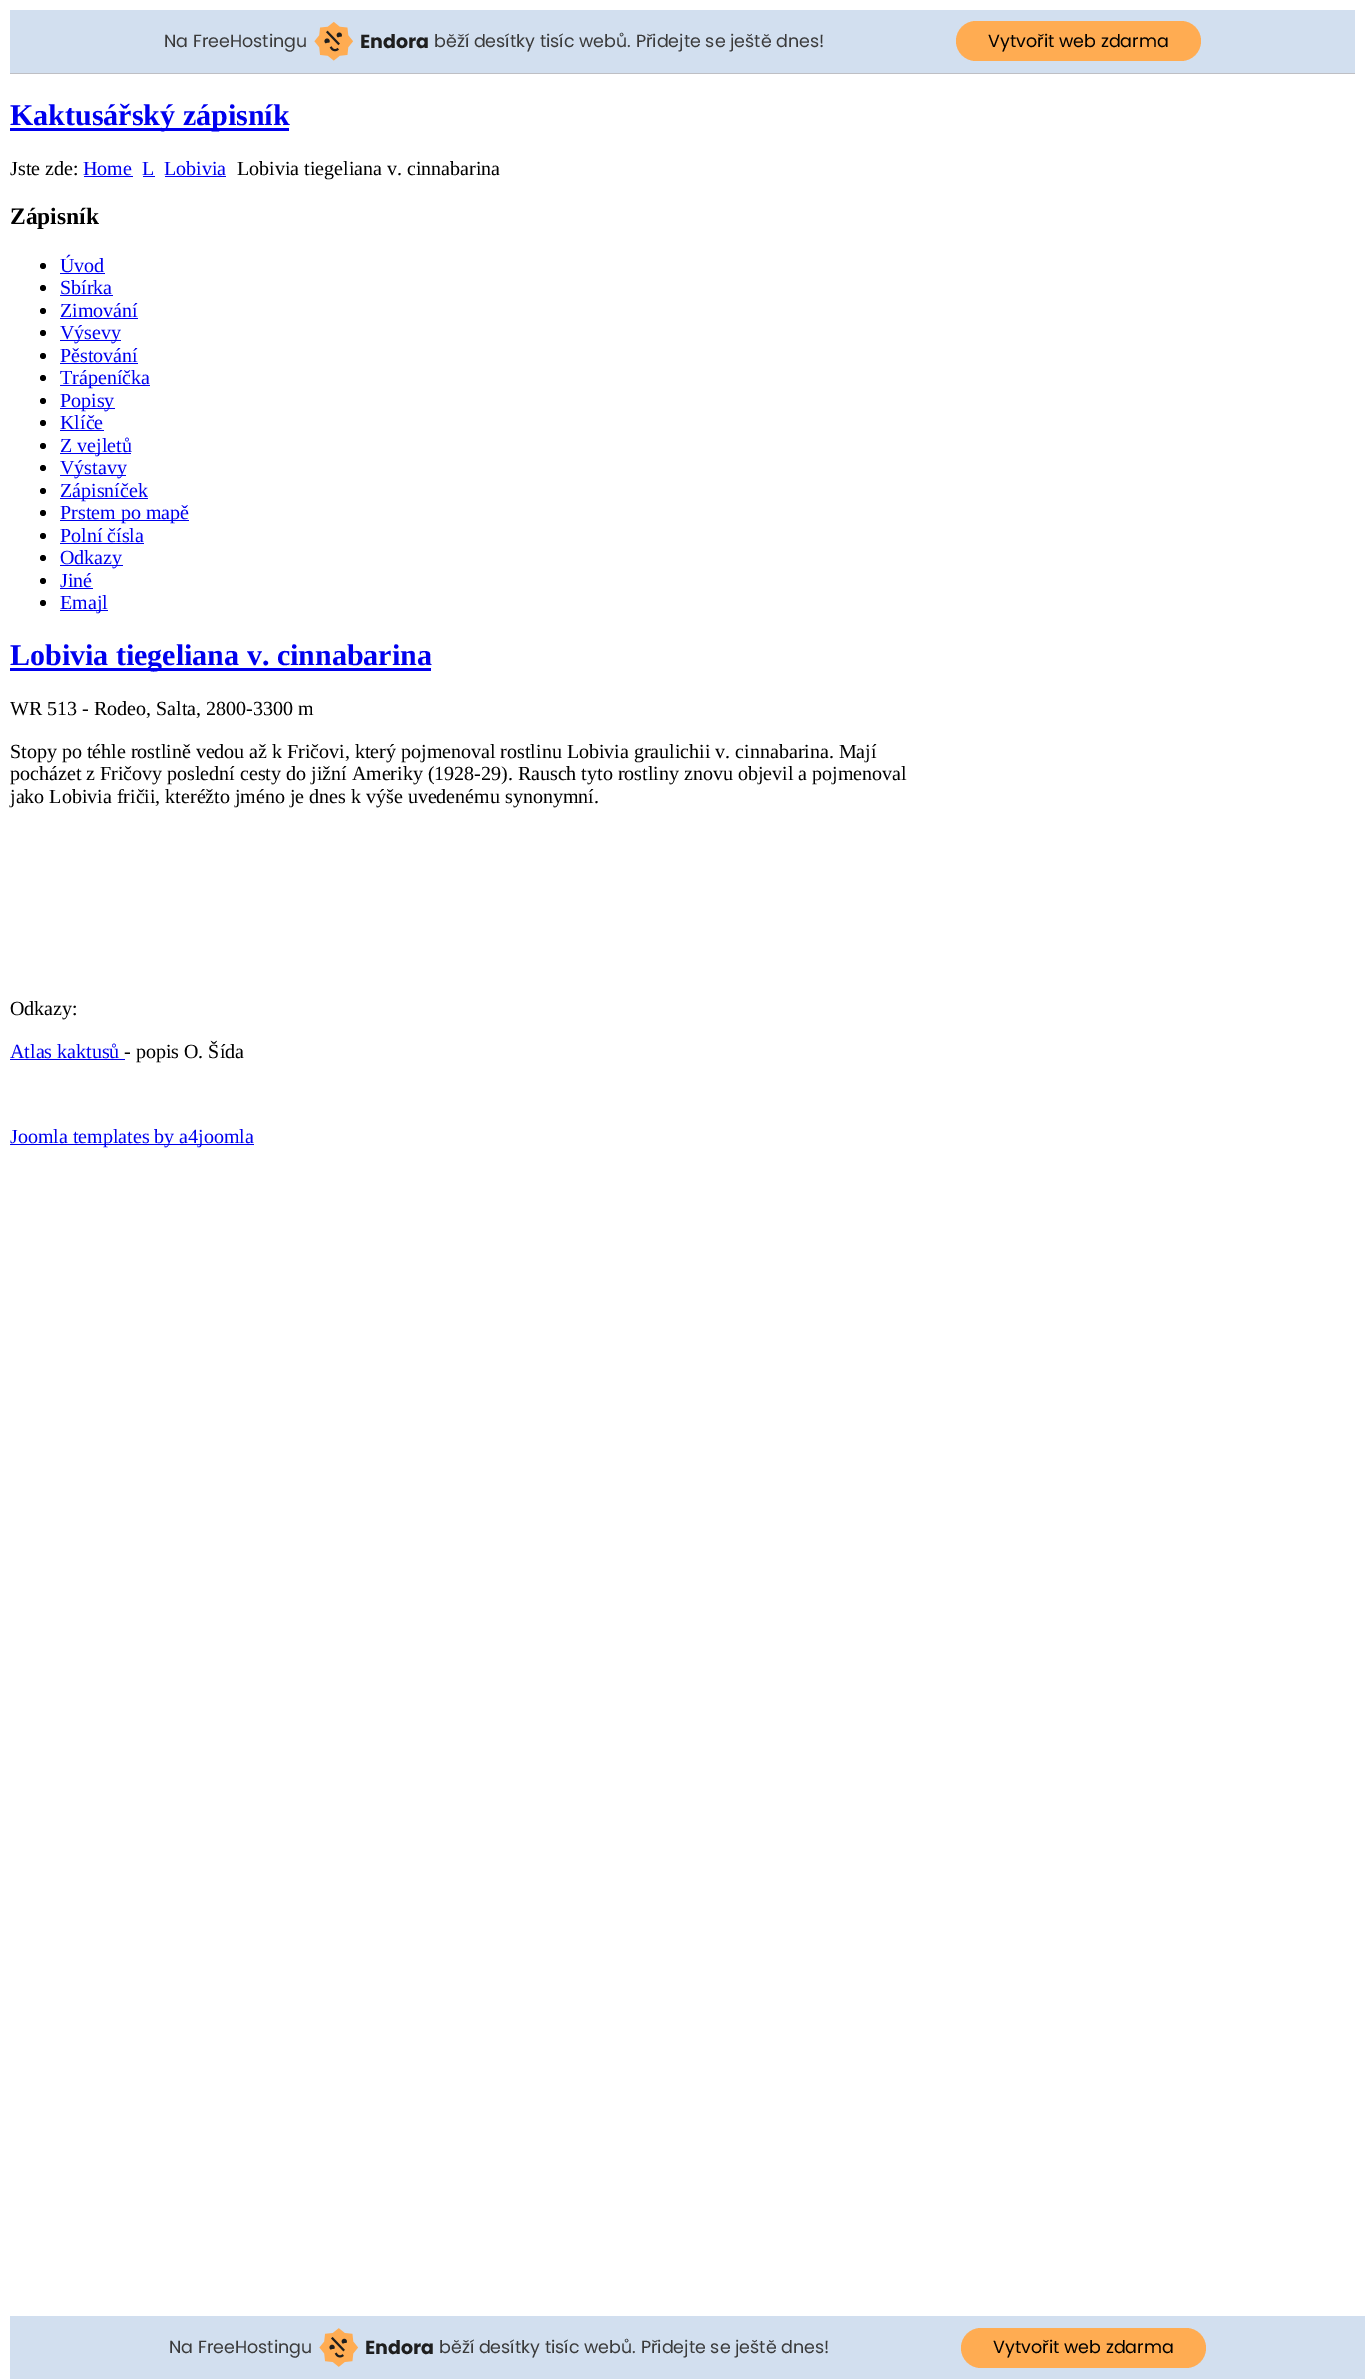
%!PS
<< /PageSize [1365 2379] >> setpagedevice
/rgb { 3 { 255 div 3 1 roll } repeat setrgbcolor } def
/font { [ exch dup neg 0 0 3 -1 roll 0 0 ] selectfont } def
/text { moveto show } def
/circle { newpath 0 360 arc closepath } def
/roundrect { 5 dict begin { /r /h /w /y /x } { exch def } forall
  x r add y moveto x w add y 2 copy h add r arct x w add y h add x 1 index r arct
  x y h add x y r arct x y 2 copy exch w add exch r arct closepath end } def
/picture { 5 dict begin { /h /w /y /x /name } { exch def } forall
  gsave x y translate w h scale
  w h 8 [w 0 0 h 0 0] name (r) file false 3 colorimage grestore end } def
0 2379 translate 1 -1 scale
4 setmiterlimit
255 255 255 rgb
0 0 1365 2379 rectfill
210 223 239 rgb
10 10 1345 63 rectfill
190 191 196 rgb
10 73 1345 1 rectfill
(img_01.rgb) 314 21 40 40 picture
255 172 82 rgb
956 21 245 40 20 roundrect fill
0 0 238 rgb
10 128 279 3 rectfill
84 176 49 1 rectfill
143 176 12 1 rectfill
165 176 61 1 rectfill
0 0 0 rgb
43 266 3 circle fill
0 0 238 rgb
60 273 45 1 rectfill
0 0 0 rgb
43 288 3 circle fill
0 0 238 rgb
60 295 53 1 rectfill
0 0 0 rgb
43 311 3 circle fill
0 0 238 rgb
60 318 78 1 rectfill
0 0 0 rgb
43 333 3 circle fill
0 0 238 rgb
60 340 61 1 rectfill
0 0 0 rgb
43 356 3 circle fill
0 0 238 rgb
60 363 78 1 rectfill
0 0 0 rgb
43 378 3 circle fill
0 0 238 rgb
60 385 90 1 rectfill
0 0 0 rgb
43 401 3 circle fill
0 0 238 rgb
60 408 55 1 rectfill
0 0 0 rgb
43 423 3 circle fill
0 0 238 rgb
60 430 44 1 rectfill
0 0 0 rgb
43 446 3 circle fill
0 0 238 rgb
60 453 71 1 rectfill
0 0 0 rgb
43 468 3 circle fill
0 0 238 rgb
60 475 66 1 rectfill
0 0 0 rgb
43 491 3 circle fill
0 0 238 rgb
60 498 88 1 rectfill
0 0 0 rgb
43 513 3 circle fill
0 0 238 rgb
60 520 129 1 rectfill
0 0 0 rgb
43 536 3 circle fill
0 0 238 rgb
60 543 84 1 rectfill
0 0 0 rgb
43 558 3 circle fill
0 0 238 rgb
60 565 63 1 rectfill
0 0 0 rgb
43 581 3 circle fill
0 0 238 rgb
60 588 33 1 rectfill
0 0 0 rgb
43 603 3 circle fill
0 0 238 rgb
60 610 48 1 rectfill
10 668 421 3 rectfill
10 1059 115 1 rectfill
10 1144 244 1 rectfill
210 223 239 rgb
10 2316 1355 63 rectfill
(img_02.rgb) 319 2328 40 39 picture
255 172 82 rgb
961 2328 245 40 20 roundrect fill
/Poppins-Regular 17.5 font
58 58 58 rgb
(Na FreeHostingu) 164 47 text
/Poppins-Bold 19 font
30 30 30 rgb
(Endora) 360 48 text
/Poppins-Regular 17.5 font
58 58 58 rgb
(běží desítky tisíc webů. Přidejte se ještě dnes!) 434 47 text
0 0 0 rgb
(Vytvořit web zdarma) 988 47 text
/LiberationSerif-Bold 30 font
0 0 238 rgb
(Kaktusářský zápisník) 10 125 text
/LiberationSerif-Regular 20 font
0 0 0 rgb
(Jste zde:) 10 175 text
0 0 238 rgb
(Home) 83 175 text
(L) 142 175 text
(Lobivia) 164 175 text
0 0 0 rgb
(Lobivia tiegeliana v. cinnabarina) 237 175 text
/LiberationSerif-Bold 23.5 font
(Zápisník) 10 224 text
/LiberationSerif-Regular 20 font
0 0 238 rgb
(Úvod) 60 272 text
(Sbírka) 60 294 text
(Zimování) 60 317 text
(Výsevy) 60 339 text
(Pěstování) 60 362 text
(Trápeníčka) 60 384 text
(Popisy) 60 407 text
(Klíče) 60 429 text
(Z vejletů) 60 452 text
(Výstavy) 60 474 text
(Zápisníček) 60 497 text
(Prstem po mapě) 60 519 text
(Polní čísla) 60 542 text
(Odkazy) 60 564 text
(Jiné) 60 587 text
(Emajl) 60 609 text
/LiberationSerif-Bold 30 font
(Lobivia tiegeliana v. cinnabarina) 10 665 text
/LiberationSerif-Regular 20 font
0 0 0 rgb
(WR 513 - Rodeo, Salta, 2800-3300 m) 10 715 text
(Stopy po téhle rostlině vedou až k Fričovi, který pojmenoval rostlinu Lobivia graulichii v. cinnabarina. Mají) 10 758 text
(pocházet z Fričovy poslední cesty do jižní Ameriky \(1928-29\). Rausch tyto rostliny znovu objevil a pojmenoval) 10 780 text
(jako Lobivia fričii, kteréžto jméno je dnes k výše uvedenému synonymní.) 10 803 text
(Odkazy:) 10 1015 text
0 0 238 rgb
(Atlas kaktusů) 10 1058 text
0 0 0 rgb
(- popis O. Šída) 124 1058 text
0 0 238 rgb
(Joomla templates by a4joomla) 10 1143 text
/Poppins-Regular 17.5 font
58 58 58 rgb
(Na FreeHostingu) 169 2353 text
/Poppins-Bold 19 font
30 30 30 rgb
(Endora) 365 2354 text
/Poppins-Regular 17.5 font
58 58 58 rgb
(běží desítky tisíc webů. Přidejte se ještě dnes!) 439 2353 text
0 0 0 rgb
(Vytvořit web zdarma) 993 2353 text
showpage
